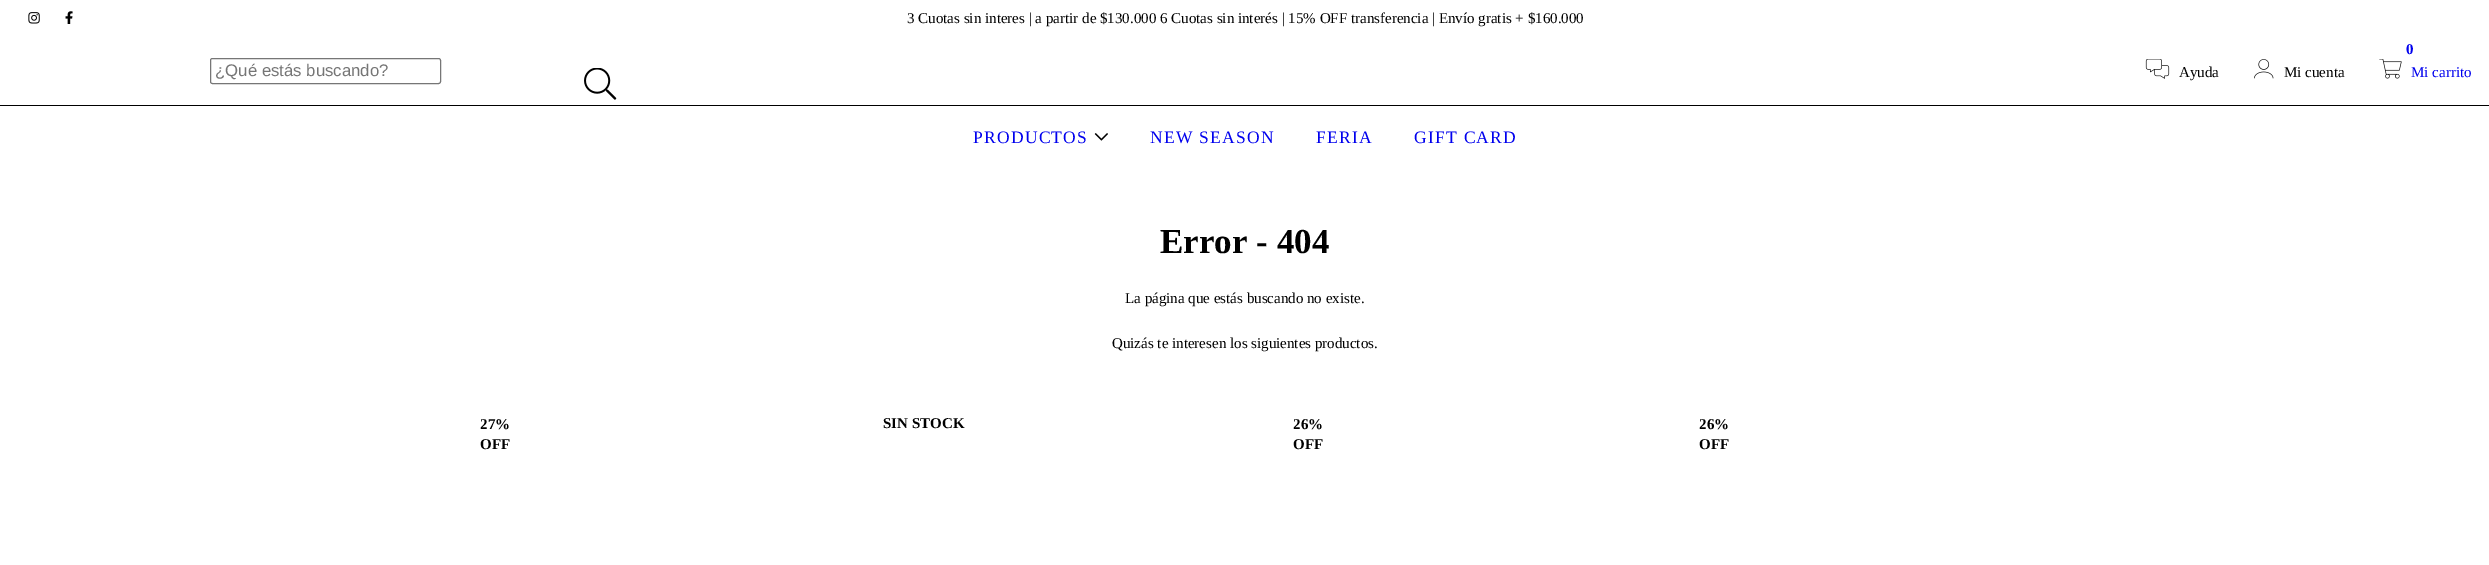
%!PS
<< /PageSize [2489 565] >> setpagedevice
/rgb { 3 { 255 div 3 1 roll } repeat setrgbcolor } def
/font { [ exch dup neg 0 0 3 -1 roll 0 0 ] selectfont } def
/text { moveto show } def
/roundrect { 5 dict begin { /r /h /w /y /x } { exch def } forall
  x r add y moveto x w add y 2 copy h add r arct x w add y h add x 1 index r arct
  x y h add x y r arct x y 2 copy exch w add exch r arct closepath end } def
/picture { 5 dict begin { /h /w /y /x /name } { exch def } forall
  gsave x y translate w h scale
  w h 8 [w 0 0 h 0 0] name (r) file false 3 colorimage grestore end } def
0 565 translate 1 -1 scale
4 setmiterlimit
255 255 255 rgb
0 0 2489 565 rectfill
(img_01.rgb) 28 12 12 12 picture
(img_02.rgb) 65 11 8 13 picture
118 118 118 rgb
210.5 58.5 230 25 2 roundrect stroke
(img_03.rgb) 584 68 33 32 picture
(img_04.rgb) 2145 59 25 20 picture
(img_05.rgb) 2254 59 20 20 picture
(img_06.rgb) 2379 59 23 20 picture
0 0 0 rgb
0 105 2489 1 rectfill
(img_07.rgb) 1094 133 14 8 picture
/LiberationSerif-Regular 15 font
(3 Cuotas sin interes | a partir de $130.000 6 Cuotas sin interés | 15% OFF transferencia | Envío gratis + $160.000) 907 23 text
/LiberationSans-Regular 16.75 font
117 117 117 rgb
(¿Qué estás buscando?) 215 76 text
/LiberationSerif-Regular 15 font
0 0 0 rgb
(Ayuda) 2179 77 text
(Mi cuenta) 2284 77 text
/LiberationSerif-Bold 15 font
0 0 238 rgb
(0) 2406 54 text
/LiberationSerif-Regular 15 font
(Mi carrito) 2411 77 text
/LiberationSerif-Regular 17.5 font
973 143 moveto 1.25 0 (PRODUCTOS) ashow
1150 143 moveto 1.25 0 (NEW SEASON) ashow
1316 143 moveto 1.25 0 (FERIA) ashow
1414 143 moveto 1.25 0 (GIFT CARD) ashow
/LiberationSerif-Bold 35 font
0 0 0 rgb
(Error - 404) 1160 253 text
/LiberationSerif-Regular 15 font
(La página que estás buscando no existe.) 1125 303 text
(Quizás te interesen los siguientes productos.) 1112 348 text
/LiberationSerif-Bold 15 font
(27%) 480 429 text
(OFF) 480 449 text
(SIN STOCK) 883 428 text
(26%) 1293 429 text
(OFF) 1293 449 text
(26%) 1699 429 text
(OFF) 1699 449 text
showpage
